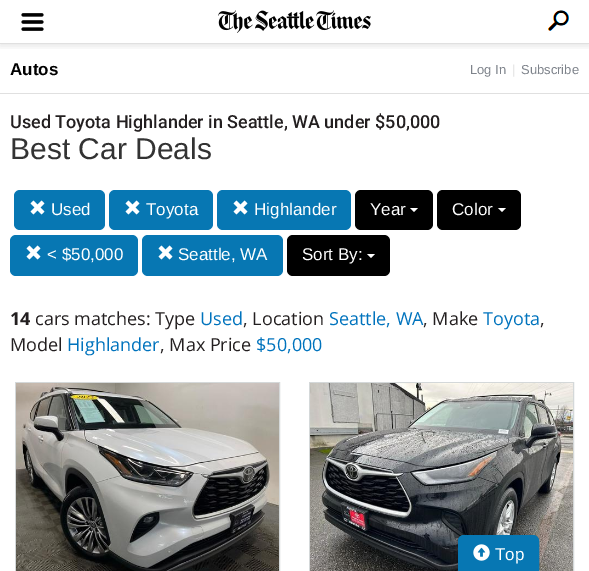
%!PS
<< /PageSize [589 571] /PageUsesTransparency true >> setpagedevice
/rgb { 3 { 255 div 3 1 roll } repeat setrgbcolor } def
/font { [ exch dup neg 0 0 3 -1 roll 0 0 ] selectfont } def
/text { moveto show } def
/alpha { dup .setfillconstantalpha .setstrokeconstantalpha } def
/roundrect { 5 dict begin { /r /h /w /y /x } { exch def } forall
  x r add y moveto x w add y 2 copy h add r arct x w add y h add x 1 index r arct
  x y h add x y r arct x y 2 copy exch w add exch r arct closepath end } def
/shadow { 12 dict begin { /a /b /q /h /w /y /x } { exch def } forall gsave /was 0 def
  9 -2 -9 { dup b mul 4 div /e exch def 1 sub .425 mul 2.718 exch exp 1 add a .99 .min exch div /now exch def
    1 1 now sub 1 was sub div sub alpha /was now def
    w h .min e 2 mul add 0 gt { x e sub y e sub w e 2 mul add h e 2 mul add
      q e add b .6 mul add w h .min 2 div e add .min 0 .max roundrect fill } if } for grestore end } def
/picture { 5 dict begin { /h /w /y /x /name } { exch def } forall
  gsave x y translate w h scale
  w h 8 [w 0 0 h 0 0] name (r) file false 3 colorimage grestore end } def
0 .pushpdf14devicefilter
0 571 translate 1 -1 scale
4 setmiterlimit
255 255 255 rgb
0 0 589 571 rectfill
gsave
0 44 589 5 rectclip
0 0 0 rgb
0 2 589 44 0 3.5 0.1 shadow
grestore
224 224 224 rgb
0 43 589 1 rectfill
(img_01.rgb) 21 13 23 18 picture
(img_02.rgb) 218 10 153 23 picture
(img_03.rgb) 548 10 21 21 picture
0 93 589 1 rectfill
7 119 179 rgb
14 190 91 40 6 roundrect fill
(img_04.rgb) 30 200 15 15 picture
109 190 104 40 6 roundrect fill
(img_04.rgb) 125 200 15 15 picture
217 190 134 40 6 roundrect fill
(img_04.rgb) 233 200 15 15 picture
0 0 0 rgb
355 190 78 40 6 roundrect fill
255 255 255 rgb
410 208 moveto 8 0 rlineto -4 4 rlineto closepath fill
0 0 0 rgb
437 190 84 40 6 roundrect fill
255 255 255 rgb
498 208 moveto 8 0 rlineto -4 4 rlineto closepath fill
7 119 179 rgb
10 235 128 41 6 roundrect fill
(img_04.rgb) 26 245 15 15 picture
142 235 141 41 6 roundrect fill
(img_04.rgb) 158 245 15 15 picture
0 0 0 rgb
287 235 103 41 6 roundrect fill
255 255 255 rgb
367 254 moveto 8 0 rlineto -4 4 rlineto closepath fill
212 216 217 rgb
15.5 382.5 264 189 rectstroke
(img_05.rgb) 16 383 263 188 picture
309.5 382.5 264 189 rectstroke
(img_06.rgb) 310 383 263 188 picture
7 119 179 rgb
458.5 535.5 80 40 5.5 roundrect gsave fill grestore
stroke
(img_07.rgb) 473 544 17 17 picture
/LiberationSans-Bold 17 font
0 0 0 rgb
(Autos) 10 75 text
/LiberationSans-Regular 13 font
126 131 139 rgb
(Log In) 470 74 text
224 224 224 rgb
(|) 512 74 text
126 131 139 rgb
(Subscribe) 521 74 text
/Roboto-Medium 18 font
35 31 32 rgb
(Used Toyota Highlander in Seattle, WA under $50,000) 10 128 text
/LiberationSans-Regular 30 font
51 51 51 rgb
(Best Car Deals) 10 159 text
/LiberationSans-Regular 17 font
255 255 255 rgb
(Used) 51 215 text
(Toyota) 146 215 text
(Highlander) 254 215 text
(Year) 370 215 text
(Color) 452 215 text
(< $50,000) 47 260 text
(Seattle, WA) 178 260 text
(Sort By:) 302 260 text
/OpenSans-Bold 18 font
35 31 32 rgb
(14) 10 325 text
/OpenSans-Regular 18 font
(cars matches: Type) 35 325 text
0 115 189 rgb
(Used) 200 325 text
35 31 32 rgb
(, Location) 243 325 text
0 115 189 rgb
(Seattle, WA) 329 325 text
35 31 32 rgb
(, Make) 423 325 text
0 115 189 rgb
(Toyota) 483 325 text
35 31 32 rgb
(,) 540 325 text
(Model) 10 351 text
0 115 189 rgb
(Highlander) 67 351 text
35 31 32 rgb
(, Max Price) 160 351 text
0 115 189 rgb
($50,000) 256 351 text
/LiberationSans-Regular 17 font
255 255 255 rgb
(Top) 495 560 text
.poppdf14devicefilter showpage
